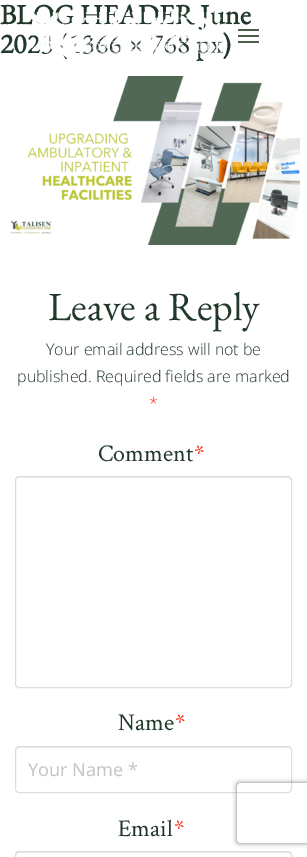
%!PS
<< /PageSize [307 857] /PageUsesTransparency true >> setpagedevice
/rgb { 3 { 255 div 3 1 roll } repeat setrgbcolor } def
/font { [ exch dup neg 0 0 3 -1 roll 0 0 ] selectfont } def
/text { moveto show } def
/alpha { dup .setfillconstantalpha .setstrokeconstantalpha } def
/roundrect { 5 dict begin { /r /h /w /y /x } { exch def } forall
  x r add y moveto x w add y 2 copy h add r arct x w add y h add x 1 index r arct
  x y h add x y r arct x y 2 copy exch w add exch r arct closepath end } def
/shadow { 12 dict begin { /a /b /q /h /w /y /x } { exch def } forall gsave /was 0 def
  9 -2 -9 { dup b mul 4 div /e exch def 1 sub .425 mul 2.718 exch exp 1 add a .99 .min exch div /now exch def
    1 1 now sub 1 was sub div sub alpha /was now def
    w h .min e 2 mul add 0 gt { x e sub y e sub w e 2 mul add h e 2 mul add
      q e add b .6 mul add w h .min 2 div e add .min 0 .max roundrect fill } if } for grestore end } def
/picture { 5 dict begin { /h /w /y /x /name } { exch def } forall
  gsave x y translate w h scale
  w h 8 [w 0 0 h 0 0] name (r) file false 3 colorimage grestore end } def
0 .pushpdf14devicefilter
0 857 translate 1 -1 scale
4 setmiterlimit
255 255 255 rgb
0 0 307 857 rectfill
(img_01.rgb) 10 76 290 169 picture
236 236 236 rgb
19 478 moveto 269 0 rlineto 2 0 3 1 3 3 rcurveto 0 -1 rlineto 0 -2 -1 -3 -3 -3 rcurveto -269 0 rlineto -2 0 -3 1 -3 3 rcurveto 0 1 rlineto 0 -2 1 -3 3 -3 rcurveto closepath fill
221 221 221 rgb
15.5 476.5 276 211 3.5 roundrect stroke
236 236 236 rgb
19 748 moveto 269 0 rlineto 2 0 3 1 3 3 rcurveto 0 -1 rlineto 0 -2 -1 -3 -3 -3 rcurveto -269 0 rlineto -2 0 -3 1 -3 3 rcurveto 0 1 rlineto 0 -2 1 -3 3 -3 rcurveto closepath fill
221 221 221 rgb
15.5 746.5 276 46 3.5 roundrect stroke
236 236 236 rgb
19 853 moveto 269 0 rlineto 2 0 3 1 3 3 rcurveto 0 -1 rlineto 0 -2 -1 -3 -3 -3 rcurveto -269 0 rlineto -2 0 -3 1 -3 3 rcurveto 0 1 rlineto 0 -2 1 -3 3 -3 rcurveto closepath fill
221 221 221 rgb
15.5 851.5 276 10 3.5 roundrect stroke
74 95 78 rgb
238 35 21 2 rectfill
238 41 21 2 rectfill
gsave
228 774 moveto 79 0 rlineto 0 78 rlineto -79 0 rlineto closepath 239 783 moveto 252 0 rlineto 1 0 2 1 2 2 rcurveto 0 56 rlineto 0 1 -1 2 -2 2 rcurveto -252 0 rlineto -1 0 -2 -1 -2 -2 rcurveto 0 -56 rlineto 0 -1 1 -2 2 -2 rcurveto closepath eoclip newpath
128 128 128 rgb
237 783 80 60 2 2.5 1 shadow
grestore
/EBGaramond-Bold 28 font
34 56 42 rgb
(BLOG HEADER June) 0 24 text
(2023 \(1366 × 768 px\)) 0 53 text
/EBGaramond-Regular 40 font
(Leave a Reply) 48 320 text
/OpenSans-Light 16 font
(Your email address will not be) 46 355 text
(published. Required fields are marked) 17 382 text
255 42 19 rgb
(*) 149 409 text
/CrimsonText-Regular 24 font
34 56 42 rgb
(Comment) 98 461 text
255 42 19 rgb
(*) 194 461 text
34 56 42 rgb
(Name) 118 730 text
255 42 19 rgb
(*) 175 730 text
/NotoSans-Regular 18 font
197 197 197 rgb
(Your Name *) 28 776 text
/CrimsonText-Regular 24 font
34 56 42 rgb
(Email) 118 836 text
255 42 19 rgb
(*) 174 836 text
(img_02.rgb) 32 12 190 46 picture
74 95 78 rgb
238 29 21 2 rectfill
.poppdf14devicefilter showpage
